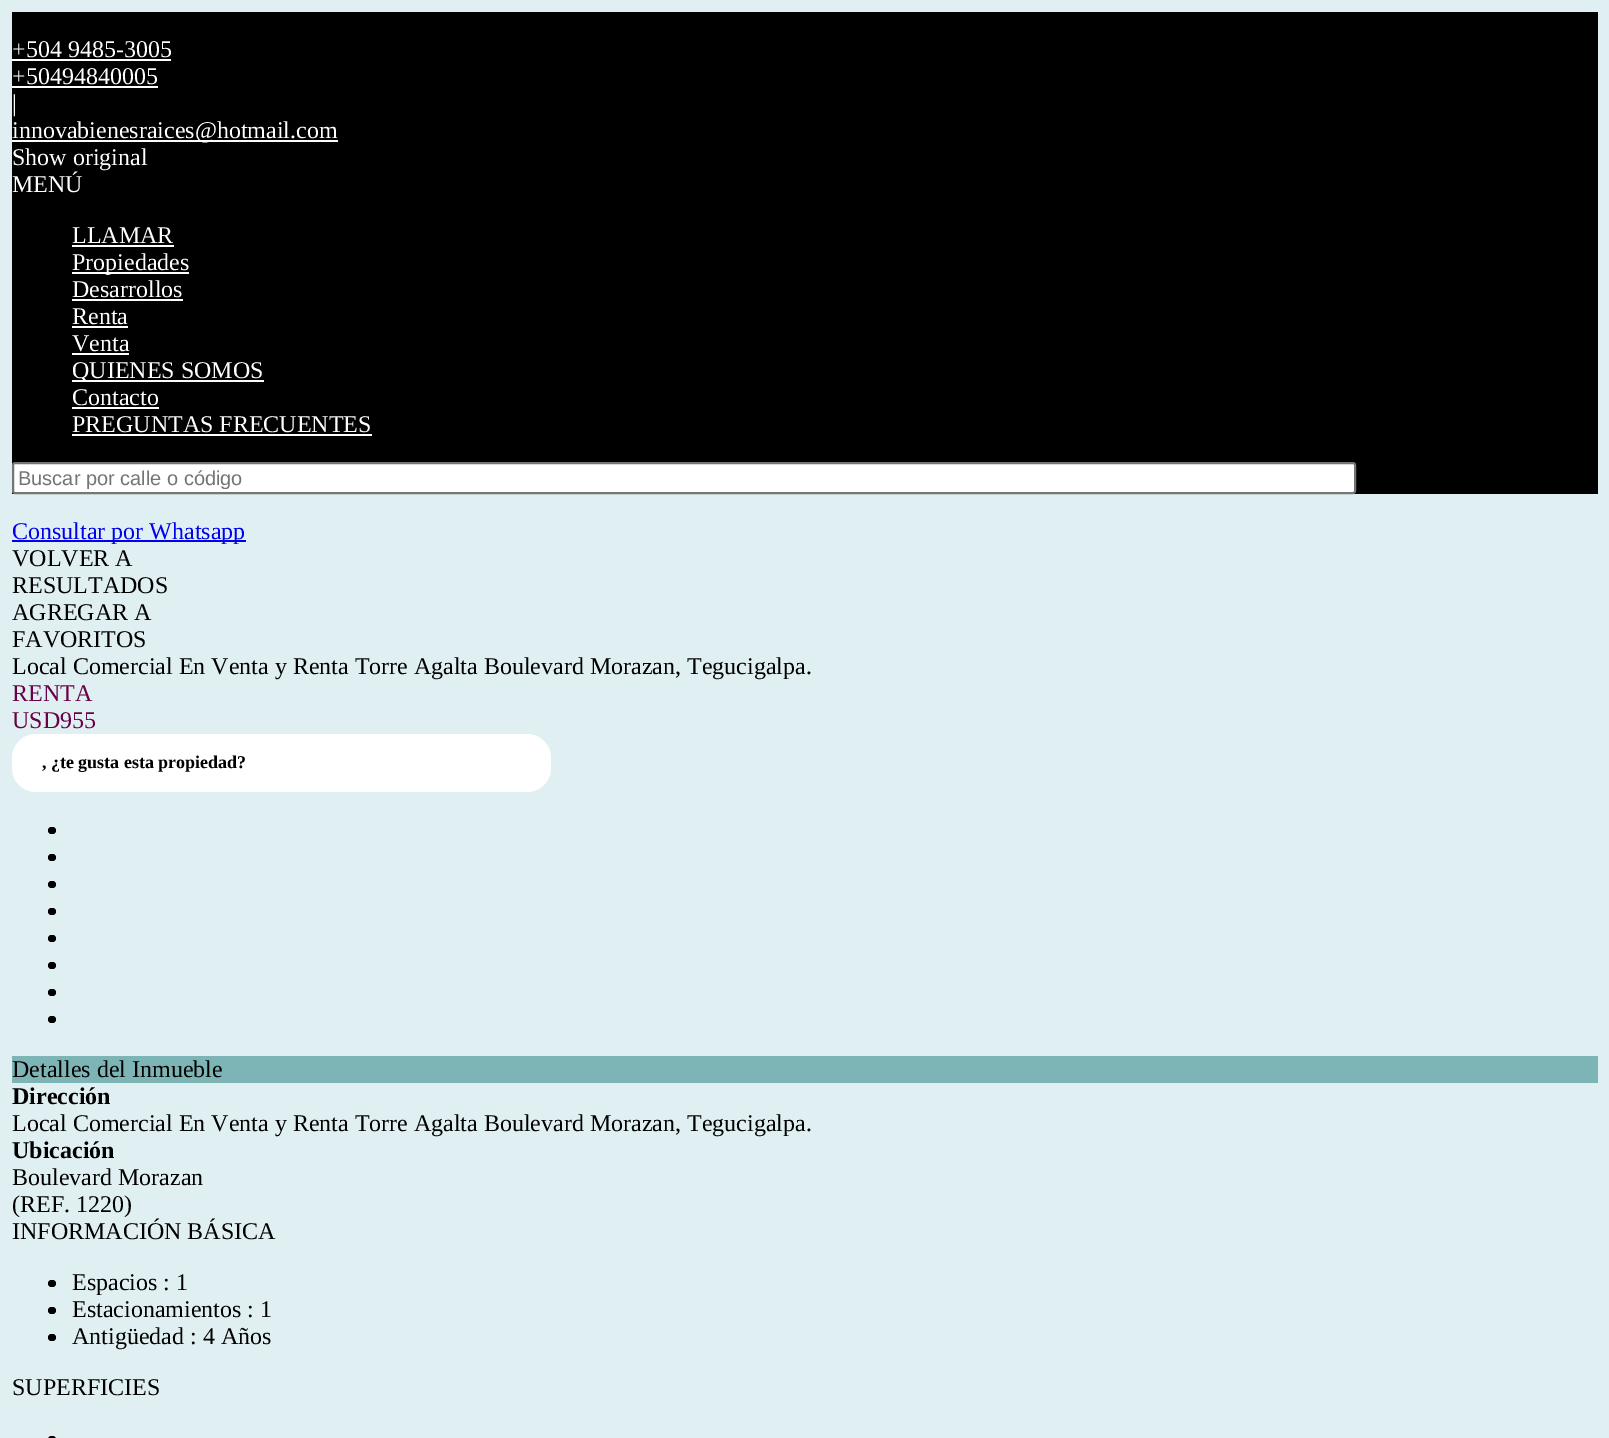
%!PS
<< /PageSize [1609 1438] >> setpagedevice
/rgb { 3 { 255 div 3 1 roll } repeat setrgbcolor } def
/font { [ exch dup neg 0 0 3 -1 roll 0 0 ] selectfont } def
/text { moveto show } def
/roundrect { 5 dict begin { /r /h /w /y /x } { exch def } forall
  x r add y moveto x w add y 2 copy h add r arct x w add y h add x 1 index r arct
  x y h add x y r arct x y 2 copy exch w add exch r arct closepath end } def
0 1438 translate 1 -1 scale
4 setmiterlimit
224 239 241 rgb
0 0 1609 1438 rectfill
0 0 0 rgb
12 12 1586 482 rectfill
255 255 255 rgb
12 59 159 2 rectfill
12 86 146 2 rectfill
12 140 326 2 rectfill
72 245 102 2 rectfill
72 272 117 2 rectfill
72 299 111 2 rectfill
72 326 56 2 rectfill
72 353 57 2 rectfill
72 380 192 2 rectfill
72 407 87 2 rectfill
72 434 300 2 rectfill
13 463 1342 30 2 roundrect gsave fill grestore
118 118 118 rgb
2 setlinewidth
stroke
0 0 238 rgb
12 540 234 2 rectfill
255 255 255 rgb
12 734 539 58 24 roundrect fill
0 0 0 rgb
48 827 8 7 3.5 roundrect fill
48 854 8 7 3.5 roundrect fill
48 881 8 7 3.5 roundrect fill
48 908 8 7 3.5 roundrect fill
48 935 8 7 3.5 roundrect fill
48 962 8 7 3.5 roundrect fill
48 989 8 7 3.5 roundrect fill
48 1016 8 7 3.5 roundrect fill
125 180 181 rgb
12 1056 1586 27 rectfill
0 0 0 rgb
48 1280 8 7 3.5 roundrect fill
48 1307 8 7 3.5 roundrect fill
48 1334 8 7 3.5 roundrect fill
48 1436 8 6 3.5 roundrect fill
/LiberationSerif-Regular 24 font
255 255 255 rgb
(+504 9485-3005) 12 57 text
(+50494840005) 12 84 text
(|) 12 111 text
(innovabienesraices@hotmail.com) 12 138 text
(Show original) 12 165 text
(MENÚ) 12 192 text
(LLAMAR) 72 243 text
(Propiedades) 72 270 text
(Desarrollos) 72 297 text
(Renta) 72 324 text
(Venta) 72 351 text
(QUIENES SOMOS) 72 378 text
(Contacto) 72 405 text
(PREGUNTAS FRECUENTES) 72 432 text
gsave
18 467 1332 22 rectclip
/LiberationSans-Regular 20 font
117 117 117 rgb
(Buscar por calle o código) 18 485 text
grestore
0 0 238 rgb
(Consultar por Whatsapp) 12 539 text
0 0 0 rgb
(VOLVER A) 12 566 text
(RESULTADOS) 12 593 text
(AGREGAR A) 12 620 text
(FAVORITOS) 12 647 text
(Local Comercial En Venta y Renta Torre Agalta Boulevard Morazan, Tegucigalpa.) 12 674 text
104 1 72 rgb
(RENTA) 12 701 text
(USD955) 12 728 text
/LiberationSerif-Bold 18 font
0 0 0 rgb
(, ¿te gusta esta propiedad?) 42 768 text
/LiberationSerif-Regular 24 font
(Detalles del Inmueble) 12 1077 text
/LiberationSerif-Bold 24 font
(Dirección) 12 1104 text
/LiberationSerif-Regular 24 font
(Local Comercial En Venta y Renta Torre Agalta Boulevard Morazan, Tegucigalpa.) 12 1131 text
/LiberationSerif-Bold 24 font
(Ubicación) 12 1158 text
/LiberationSerif-Regular 24 font
(Boulevard Morazan) 12 1185 text
(\(REF. 1220\)) 12 1212 text
(INFORMACIÓN BÁSICA) 12 1239 text
(Espacios : 1) 72 1290 text
(Estacionamientos : 1) 72 1317 text
(Antigüedad : 4 Años) 72 1344 text
(SUPERFICIES) 12 1395 text
showpage
